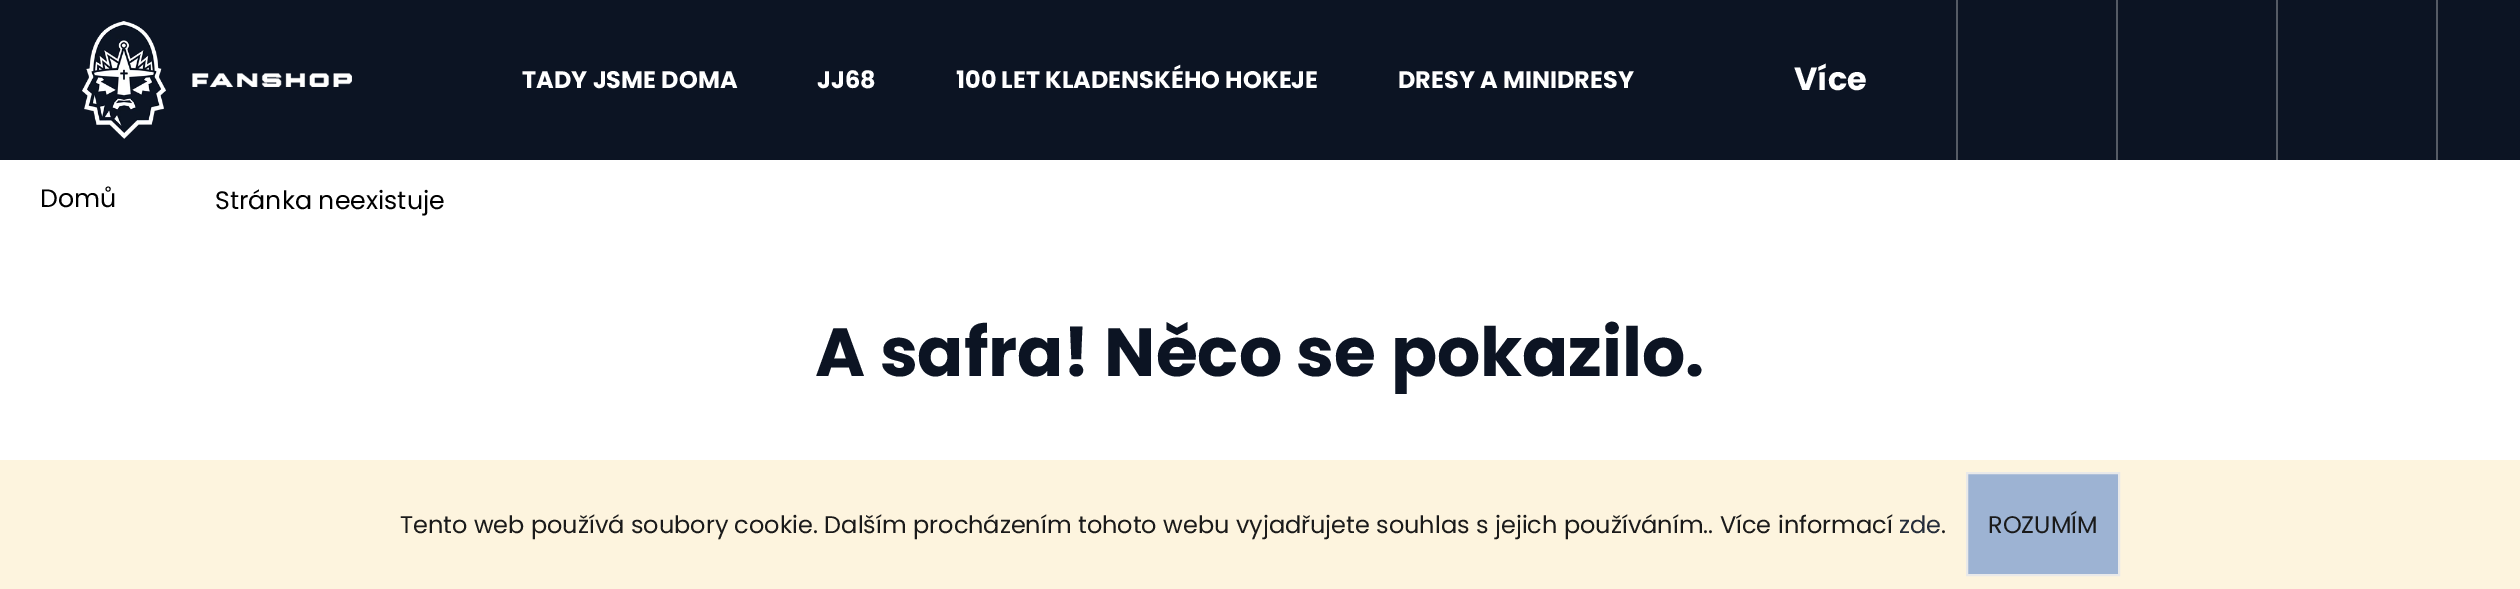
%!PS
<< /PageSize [2520 589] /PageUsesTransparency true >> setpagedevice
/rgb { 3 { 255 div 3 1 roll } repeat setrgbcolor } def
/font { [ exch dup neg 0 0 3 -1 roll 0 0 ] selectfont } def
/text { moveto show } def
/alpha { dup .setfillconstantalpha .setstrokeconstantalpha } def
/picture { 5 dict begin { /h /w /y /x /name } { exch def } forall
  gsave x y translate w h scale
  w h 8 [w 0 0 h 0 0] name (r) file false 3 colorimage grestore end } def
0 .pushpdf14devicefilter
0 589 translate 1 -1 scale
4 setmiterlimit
255 255 255 rgb
0 0 2520 589 rectfill
12 20 35 rgb
0 0 2520 160 rectfill
(img_01.rgb) 82 21 270 118 picture
85 91 101 rgb
2436 0 2 160 rectfill
1956 0 2 160 rectfill
2116 0 2 160 rectfill
2276 0 2 160 rectfill
0.9 alpha
253 243 218 rgb
0 460 2520 129 rectfill
1 alpha
157 179 211 rgb
1967 473 moveto 152 0 rlineto 0 102 rlineto -152 0 rlineto closepath gsave fill grestore
233 233 233 rgb
2 setlinewidth
stroke
/Poppins-Bold 24 font
255 255 255 rgb
(TADY JSME DOMA) 522 88 text
(JJ68) 817 88 text
(100 LET KLADENSKÉHO HOKEJE) 956 88 text
(DRESY A MINIDRESY) 1398 88 text
/Poppins-Bold 32 font
(Více) 1794 90 text
/Poppins-Regular 25.25 font
0 0 0 rgb
(Domů) 40 207 text
(Stránka neexistuje) 215 209 text
/Poppins-Bold 68 font
12 20 35 rgb
(A safra! Něco se pokazilo.) 815 376 text
/Poppins-Regular 24 font
26 26 26 rgb
(Tento web používá soubory cookie. Dalším procházením tohoto webu vyjadřujete souhlas s jejich používáním.. Více informací) 400 533 text
36 44 57 rgb
(zde) 1899 533 text
26 26 26 rgb
(.) 1941 533 text
(ROZUMÍM) 1988 533 text
.poppdf14devicefilter showpage
